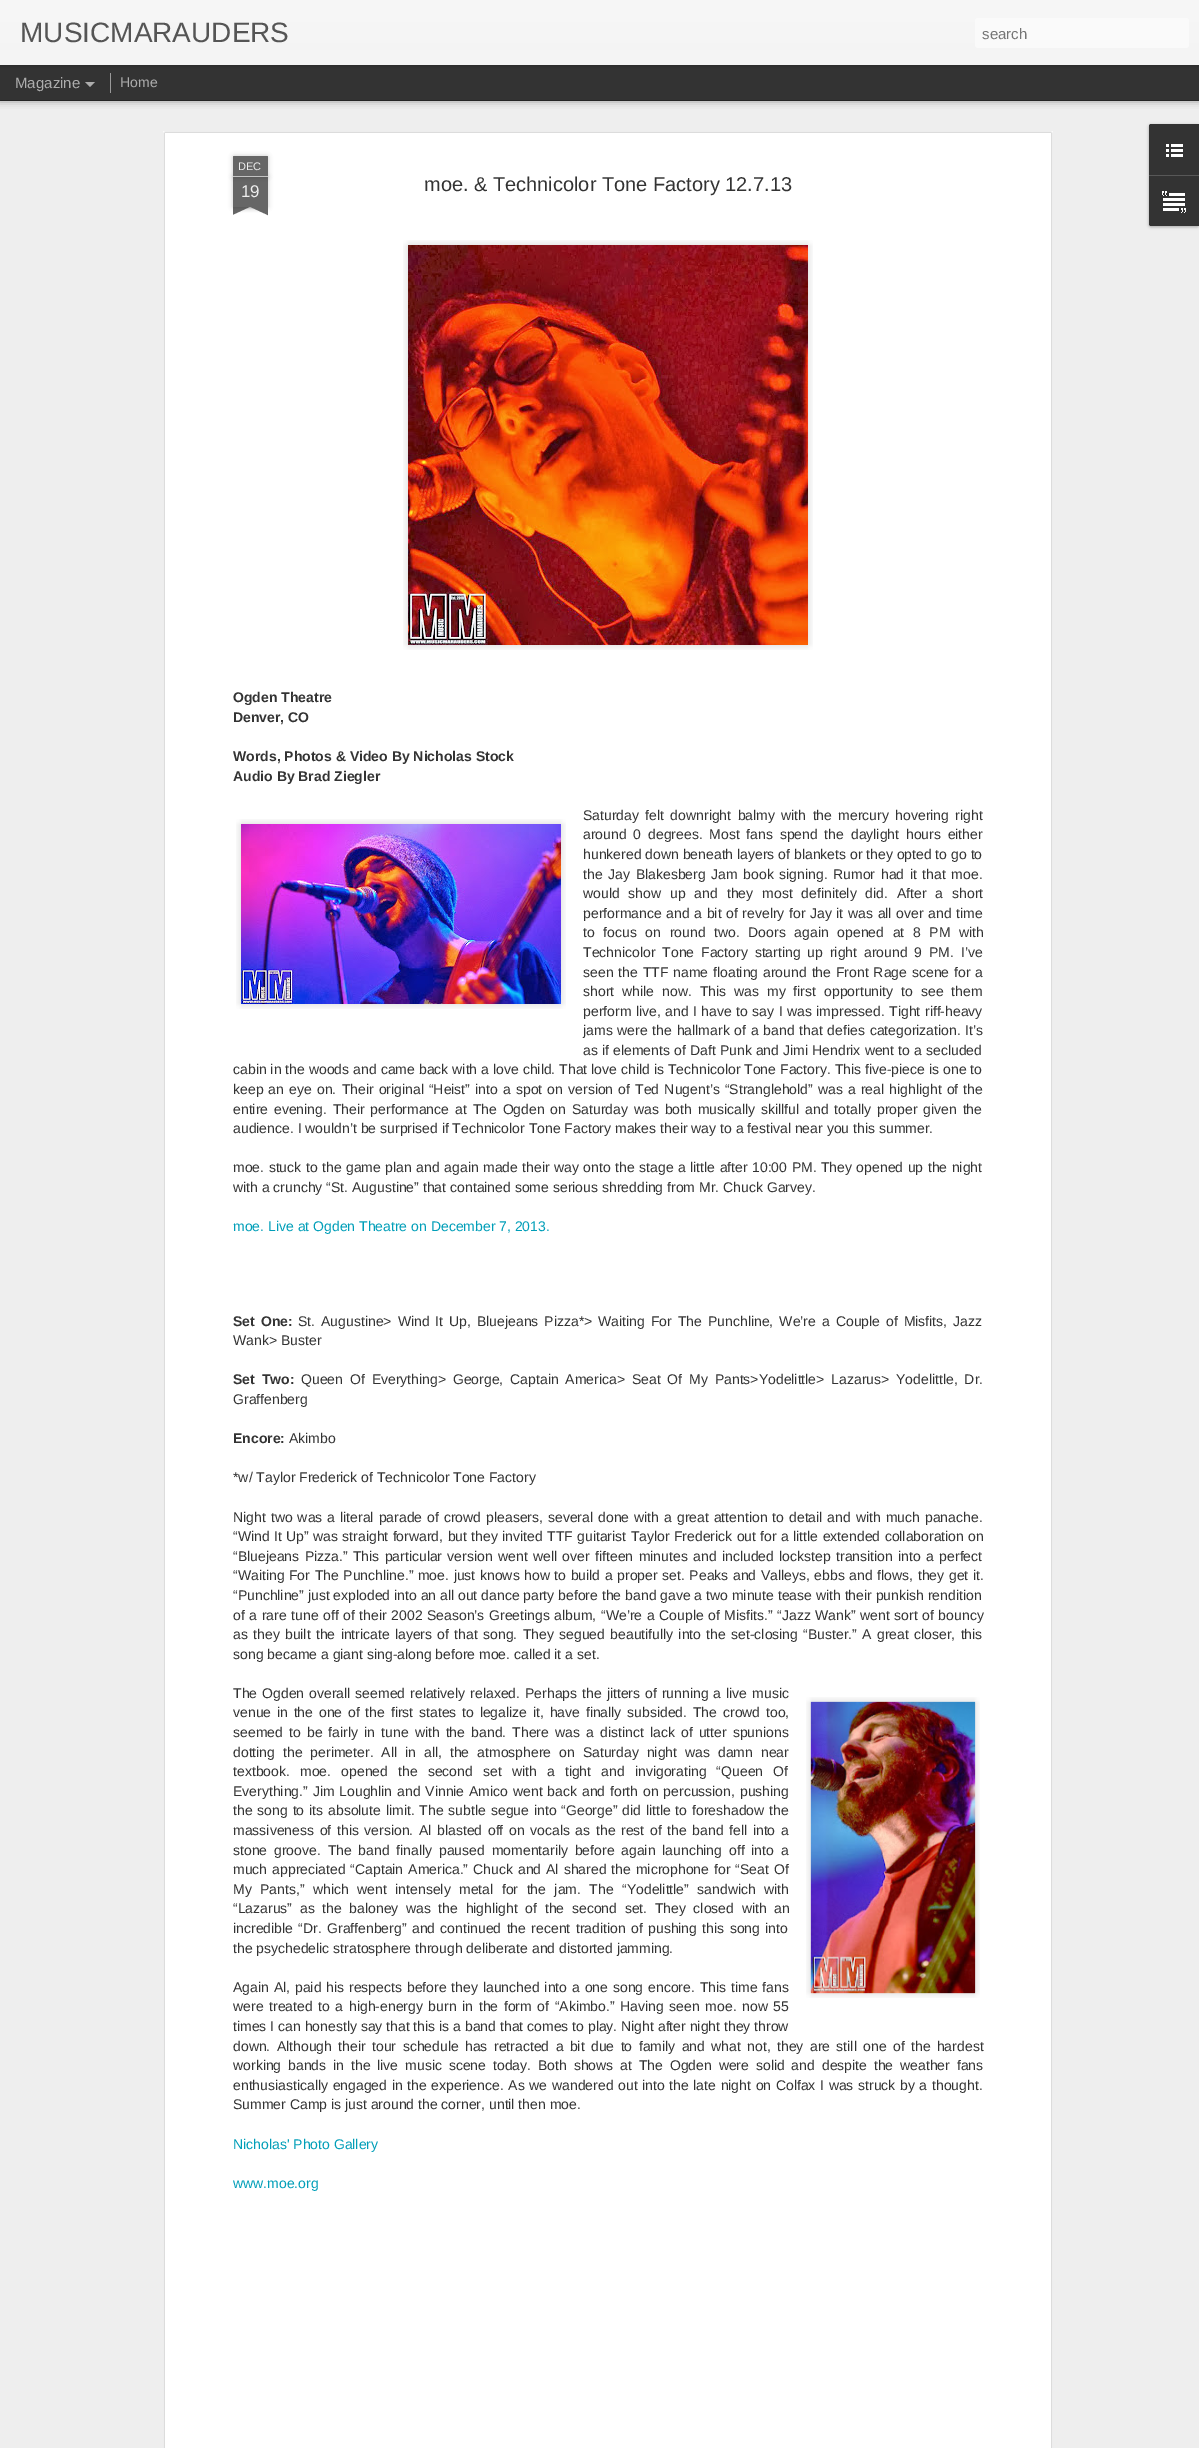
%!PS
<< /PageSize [1199 2448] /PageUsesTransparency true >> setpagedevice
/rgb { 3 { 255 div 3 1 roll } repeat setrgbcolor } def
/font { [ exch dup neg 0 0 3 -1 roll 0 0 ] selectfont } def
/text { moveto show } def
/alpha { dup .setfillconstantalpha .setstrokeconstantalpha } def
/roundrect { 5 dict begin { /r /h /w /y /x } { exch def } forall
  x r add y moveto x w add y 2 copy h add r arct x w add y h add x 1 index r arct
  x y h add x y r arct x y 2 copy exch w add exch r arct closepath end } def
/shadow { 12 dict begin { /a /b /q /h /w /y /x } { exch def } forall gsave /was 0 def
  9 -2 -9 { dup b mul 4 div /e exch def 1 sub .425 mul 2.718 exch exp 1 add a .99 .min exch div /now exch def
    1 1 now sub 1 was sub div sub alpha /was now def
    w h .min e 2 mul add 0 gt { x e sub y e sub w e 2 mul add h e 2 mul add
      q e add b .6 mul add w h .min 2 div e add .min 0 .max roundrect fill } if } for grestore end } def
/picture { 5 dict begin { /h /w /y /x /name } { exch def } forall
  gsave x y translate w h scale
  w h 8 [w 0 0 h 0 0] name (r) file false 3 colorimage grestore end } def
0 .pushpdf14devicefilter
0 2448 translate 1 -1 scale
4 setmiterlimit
51 51 51 rgb
0 0 1199 2448 rectfill
238 238 238 rgb
0 101 1199 2347 rectfill
0 0 0 rgb
0 65 1199 35 0 4 0.5 shadow
51 51 51 rgb
0 65 1199 35 rectfill
153 153 153 rgb
110 73 1 20 rectfill
0 0 0 rgb
0 0 1199 65 0 2.5 0.3 shadow
gsave 0 0 moveto 1199 0 rlineto 0 65 rlineto -1199 0 rlineto closepath clip newpath
<< /ShadingType 2 /ColorSpace /DeviceRGB /Coords [0 0 0 65] /Extend [true true] /Function << /FunctionType 2 /Domain [0 1] /C0 [0.969 0.969 0.969] /C1 [0.957 0.957 0.957] /N 1 >> >> shfill grestore
250 250 250 rgb
975 18 214 30 3 roundrect fill
173 173 173 rgb
85 82 moveto 10 0 rlineto -5 5 rlineto closepath fill
255 255 255 rgb
163 131 890 2317 rectfill
(img_01.rgb) 163 131 890 2317 picture
0 0 0 rgb
233 177 35 30 0 2.5 0.2 shadow
102 102 102 rgb
233 177 35 30 rectfill
0 0 0 rgb
233 156 35 21 1 2.5 0.2 shadow
102 102 102 rgb
234 156 moveto 33 0 rlineto 0.5 0 1 0.5 1 1 rcurveto 0 20 rlineto -35 0 rlineto 0 -20 rlineto 0 -0.5 0.5 -1 1 -1 rcurveto closepath fill
194 194 194 rgb
233 176 35 1 rectfill
gsave
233 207 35 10 rectclip
0 0 0 rgb
224 197 50 10 0 2.5 0.2 shadow
grestore
gsave
233 207 35 10 rectclip
102 102 102 rgb
224 208 moveto 45 -21 rlineto 4 9 rlineto -45 21 rlineto closepath fill
grestore
gsave
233 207 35 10 rectclip
0 0 0 rgb
227 197 50 10 0 2.5 0.2 shadow
grestore
gsave
233 207 35 10 rectclip
102 102 102 rgb
231 187 moveto 45 21 rlineto -4 9 rlineto -45 -21 rlineto closepath fill
grestore
(img_02.rgb) 403 240 410 410 picture
(img_03.rgb) 236 819 330 190 picture
(img_04.rgb) 806 1697 174 301 picture
(img_05.rgb) 810 1701 166 293 picture
0 0 0 rgb
1149 125 50 102 2 1.5 0.3 shadow
51 51 51 rgb
1151 124 moveto 48 0 rlineto 0 51 rlineto -50 0 rlineto 0 -49 rlineto 0 -1 1 -2 2 -2 rcurveto closepath fill
(img_06.rgb) 1166 144 17 13 picture
1149 175 moveto 50 0 rlineto 0 51 rlineto -48 0 rlineto -1 0 -2 -1 -2 -2 rcurveto closepath fill
88 88 88 rgb
1149 175 50 1 rectfill
(img_07.rgb) 1162 191 24 22 picture
/LiberationSans-Regular 28 font
85 85 85 rgb
(MUSICMARAUDERS) 20 42 text
/LiberationSans-Regular 15 font
117 117 117 rgb
(search) 982 39 text
173 173 173 rgb
(Magazine) 15 88 text
/LiberationSans-Regular 14 font
(Home) 120 87 text
/LiberationSans-Regular 11 font
238 238 238 rgb
(DEC) 238 170 text
/LiberationSans-Regular 17 font
(19) 241 197 text
/LiberationSans-Regular 20 font
51 51 51 rgb
(moe. & Technicolor Tone Factory 12.7.13) 424 191 text
/LiberationSans-Bold 14 font
(Ogden Theatre) 233 702 text
(Denver, CO) 233 722 text
(Words, Photos & Video By Nicholas Stock) 233 761 text
(Audio By Brad Ziegler) 233 781 text
/LiberationSans-Regular 14 font
583 820 moveto 2.5 0 32 (Saturday felt downright balmy with the mercury hovering right) widthshow
583 839 moveto 2.9 0 32 (around 0 degrees. Most fans spend the daylight hours either) widthshow
(hunkered down beneath layers of blankets or they opted to go to) 583 859 text
583 879 moveto 1.75 0 32 (the Jay Blakesberg Jam book signing. Rumor had it that moe.) widthshow
583 898 moveto 5 0 32 (would show up and they most definitely did. After a short) widthshow
583 918 moveto 0.75 0 32 (performance and a bit of revelry for Jay it was all over and time) widthshow
583 937 moveto 4.75 0 32 (to focus on round two. Doors again opened at 8 PM with) widthshow
583 957 moveto 3 0 32 (Technicolor Tone Factory starting up right around 9 PM. I’ve) widthshow
583 977 moveto 1 0 32 (seen the TTF name floating around the Front Rage scene for a) widthshow
583 996 moveto 4.1 0 32 (short while now. This was my first opportunity to see them) widthshow
583 1016 moveto 0.6 0 32 (perform live, and I have to say I was impressed. Tight riff-heavy) widthshow
583 1035 moveto 0.9 0 32 (jams were the hallmark of a band that defies categorization. It’s) widthshow
583 1055 moveto 0.25 0 32 (as if elements of Daft Punk and Jimi Hendrix went to a secluded) widthshow
233 1074 moveto 0.1 0 32 (cabin in the woods and came back with a love child. That love child is Technicolor Tone Factory. This five-piece is one to) widthshow
233 1094 moveto 1.25 0 32 (keep an eye on. Their original “Heist” into a spot on version of Ted Nugent’s “Stranglehold” was a real highlight of the) widthshow
233 1114 moveto 2 0 32 (entire evening. Their performance at The Ogden on Saturday was both musically skillful and totally proper given the) widthshow
(audience. I wouldn’t be surprised if Technicolor Tone Factory makes their way to a festival near you this summer.) 233 1133 text
233 1172 moveto 0.6 0 32 (moe. stuck to the game plan and again made their way onto the stage a little after 10:00 PM. They opened up the night) widthshow
(with a crunchy “St. Augustine” that contained some serious shredding from Mr. Chuck Garvey.) 233 1192 text
0 158 184 rgb
(moe. Live at Ogden Theatre on December 7, 2013.) 233 1231 text
/LiberationSans-Bold 14 font
51 51 51 rgb
233 1326 moveto 2.1 0 32 (Set One:) widthshow
/LiberationSans-Regular 14 font
298 1326 moveto 2.1 0 32 (St. Augustine> Wind It Up, Bluejeans Pizza*> Waiting For The Punchline, We’re a Couple of Misfits, Jazz) widthshow
(Wank> Buster) 233 1345 text
/LiberationSans-Bold 14 font
233 1384 moveto 3 0 32 (Set Two:) widthshow
/LiberationSans-Regular 14 font
301 1384 moveto 3 0 32 (Queen Of Everything> George, Captain America> Seat Of My Pants>Yodelittle> Lazarus> Yodelittle, Dr.) widthshow
(Graffenberg) 233 1404 text
/LiberationSans-Bold 14 font
(Encore:) 233 1443 text
/LiberationSans-Regular 14 font
(Akimbo) 289 1443 text
(*w/ Taylor Frederick of Technicolor Tone Factory) 233 1482 text
233 1522 moveto 1.1 0 32 (Night two was a literal parade of crowd pleasers, several done with a great attention to detail and with much panache.) widthshow
233 1541 moveto 0.5 0 32 (“Wind It Up” was straight forward, but they invited TTF guitarist Taylor Frederick out for a little extended collaboration on) widthshow
233 1561 moveto 1.5 0 32 (“Bluejeans Pizza.” This particular version went well over fifteen minutes and included lockstep transition into a perfect) widthshow
233 1580 moveto 0.7 0 32 (“Waiting For The Punchline.” moe. just knows how to build a proper set. Peaks and Valleys, ebbs and flows, they get it.) widthshow
(“Punchline” just exploded into an all out dance party before the band gave a two minute tease with their punkish rendition) 233 1600 text
233 1620 moveto 0.7 0 32 (of a rare tune off of their 2002 Season’s Greetings album, “We’re a Couple of Misfits.” “Jazz Wank” went sort of bouncy) widthshow
233 1639 moveto 1.4 0 32 (as they built the intricate layers of that song. They segued beautifully into the set-closing “Buster.” A great closer, this) widthshow
(song became a giant sing-along before moe. called it a set.) 233 1659 text
233 1698 moveto 1.1 0 32 (The Ogden overall seemed relatively relaxed. Perhaps the jitters of running a live music) widthshow
233 1717 moveto 1.9 0 32 (venue in the one of the first states to legalize it, have finally subsided. The crowd too,) widthshow
233 1737 moveto 2.25 0 32 (seemed to be fairly in tune with the band. There was a distinct lack of utter spunions) widthshow
233 1757 moveto 4.1 0 32 (dotting the perimeter. All in all, the atmosphere on Saturday night was damn near) widthshow
233 1776 moveto 6.25 0 32 (textbook. moe. opened the second set with a tight and invigorating “Queen Of) widthshow
233 1796 moveto 1 0 32 (Everything.” Jim Loughlin and Vinnie Amico went back and forth on percussion, pushing) widthshow
233 1815 moveto 1 0 32 (the song to its absolute limit. The subtle segue into “George” did little to foreshadow the) widthshow
233 1835 moveto 1.75 0 32 (massiveness of this version. Al blasted off on vocals as the rest of the band fell into a) widthshow
233 1855 moveto 2.9 0 32 (stone groove. The band finally paused momentarily before again launching off into a) widthshow
233 1874 moveto 1.1 0 32 (much appreciated “Captain America.” Chuck and Al shared the microphone for “Seat Of) widthshow
233 1894 moveto 4.6 0 32 (My Pants,” which went intensely metal for the jam. The “Yodelittle” sandwich with) widthshow
233 1913 moveto 3.75 0 32 (“Lazarus” as the baloney was the highlight of the second set. They closed with an) widthshow
233 1933 moveto 1.5 0 32 (incredible “Dr. Graffenberg” and continued the recent tradition of pushing this song into) widthshow
(the psychedelic stratosphere through deliberate and distorted jamming.) 233 1953 text
233 1992 moveto 1 0 32 (Again Al, paid his respects before they launched into a one song encore. This time fans) widthshow
233 2011 moveto 1.75 0 32 (were treated to a high-energy burn in the form of “Akimbo.” Having seen moe. now 55) widthshow
(times I can honestly say that this is a band that comes to play. Night after night they throw) 233 2031 text
233 2051 moveto 2.5 0 32 (down. Although their tour schedule has retracted a bit due to family and what not, they are still one of the hardest) widthshow
233 2070 moveto 3 0 32 (working bands in the live music scene today. Both shows at The Ogden were solid and despite the weather fans) widthshow
233 2090 moveto 0.75 0 32 (enthusiastically engaged in the experience. As we wandered out into the late night on Colfax I was struck by a thought.) widthshow
(Summer Camp is just around the corner, until then moe.) 233 2109 text
0 158 184 rgb
(Nicholas' Photo Gallery) 233 2149 text
(www.moe.org) 233 2188 text
.poppdf14devicefilter showpage
